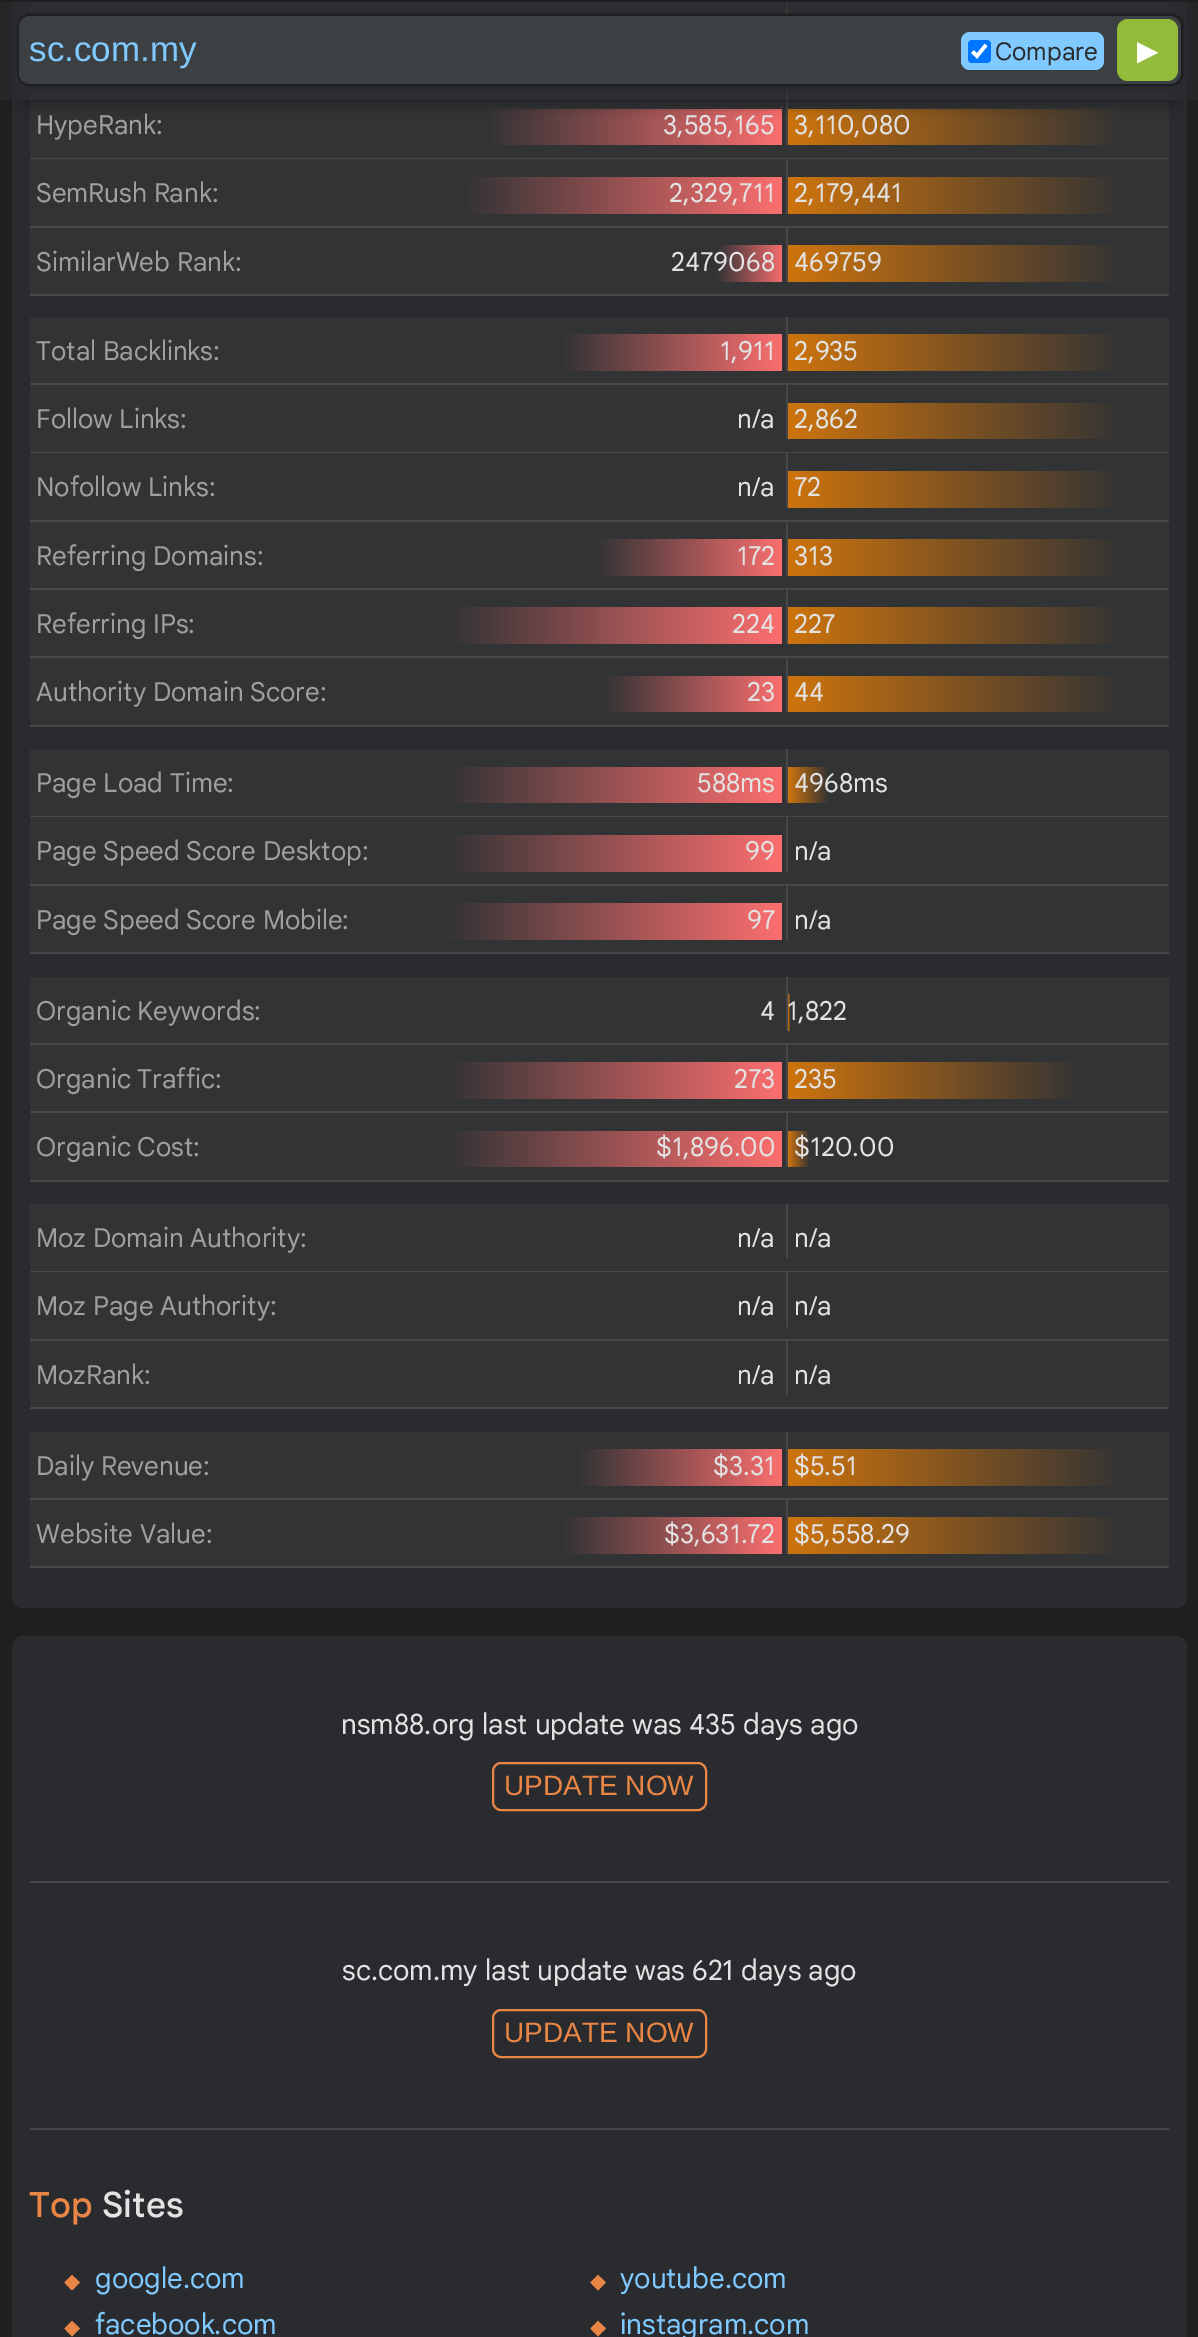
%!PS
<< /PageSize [1198 2337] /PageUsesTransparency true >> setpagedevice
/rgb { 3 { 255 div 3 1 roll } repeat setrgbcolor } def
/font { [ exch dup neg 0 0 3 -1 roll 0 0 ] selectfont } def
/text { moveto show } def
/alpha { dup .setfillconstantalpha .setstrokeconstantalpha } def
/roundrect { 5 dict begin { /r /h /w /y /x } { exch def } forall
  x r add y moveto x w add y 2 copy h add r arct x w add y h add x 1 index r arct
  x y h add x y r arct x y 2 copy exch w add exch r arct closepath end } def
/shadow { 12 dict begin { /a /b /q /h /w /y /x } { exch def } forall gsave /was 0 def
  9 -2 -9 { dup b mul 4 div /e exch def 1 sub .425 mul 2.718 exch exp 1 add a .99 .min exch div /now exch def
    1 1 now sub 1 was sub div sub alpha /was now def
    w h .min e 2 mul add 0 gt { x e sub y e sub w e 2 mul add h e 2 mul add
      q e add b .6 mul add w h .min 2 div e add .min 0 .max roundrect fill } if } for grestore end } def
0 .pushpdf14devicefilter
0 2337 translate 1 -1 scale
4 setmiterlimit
31 31 31 rgb
0 0 1198 2337 rectfill
42 43 47 rgb
12 -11 1175 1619 11 roundrect fill
31 31 31 rgb
12 0 1175 2 rectfill
50 51 53 rgb
30 91 1139 67 rectfill
gsave 490 109 moveto 292 0 rlineto 0 36 rlineto -292 0 rlineto closepath clip newpath
<< /ShadingType 2 /ColorSpace /DeviceRGB /Coords [786 118 486 118] /Extend [true true] /Function << /FunctionType 2 /Domain [0 1] /C0 [1 0.439 0.439] /C1 [0.196 0.2 0.208] /N 1 >> >> shfill grestore
71 71 71 rgb
786 91 2 54 rectfill
gsave 788 109 moveto 333 0 rlineto 0 36 rlineto -333 0 rlineto closepath clip newpath
<< /ShadingType 2 /ColorSpace /DeviceRGB /Coords [788 118 1126 118] /Extend [true true] /Function << /FunctionType 2 /Domain [0 1] /C0 [0.808 0.455 0.051] /C1 [0.196 0.2 0.208] /N 1 >> >> shfill grestore
gsave
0 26 moveto 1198 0 rlineto 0 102 rlineto -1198 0 rlineto closepath 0 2 moveto 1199 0 rlineto 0 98 rlineto -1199 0 rlineto closepath eoclip newpath
24 24 24 rgb
26 54 1147 46 0 9 1 shadow
grestore
50 51 53 rgb
30 2 1139 14 rectfill
71 71 71 rgb
786 2 2 14 rectfill
0.6 alpha
42 43 47 rgb
0 2 1198 98 rectfill
1 alpha
26 26 26 rgb
18 14 1165 72 12 1 1 shadow
60 64 67 rgb
19 16 1162 68 11 roundrect fill
128 202 255 rgb
961 32 143 38 9 roundrect fill
0 117 255 rgb
968 40 23 23 4 roundrect fill
255 255 255 rgb
3.6 setlinewidth
972.5 51.5 moveto 4.5 4.5 rlineto 9 -11 rlineto stroke
146 187 57 rgb
1117 19 61 62 11 roundrect fill
71 71 71 rgb
30 158 1139 1 rectfill
50 51 53 rgb
30 159 1139 67 rectfill
71 71 71 rgb
30 226 1139 2 rectfill
gsave 467 177 moveto 315 0 rlineto 0 37 rlineto -315 0 rlineto closepath clip newpath
<< /ShadingType 2 /ColorSpace /DeviceRGB /Coords [786 186 463 186] /Extend [true true] /Function << /FunctionType 2 /Domain [0 1] /C0 [1 0.439 0.439] /C1 [0.196 0.2 0.208] /N 1 >> >> shfill grestore
786 159 2 55 rectfill
gsave 788 177 moveto 333 0 rlineto 0 37 rlineto -333 0 rlineto closepath clip newpath
<< /ShadingType 2 /ColorSpace /DeviceRGB /Coords [788 186 1126 186] /Extend [true true] /Function << /FunctionType 2 /Domain [0 1] /C0 [0.808 0.455 0.051] /C1 [0.196 0.2 0.208] /N 1 >> >> shfill grestore
50 51 53 rgb
30 228 1139 66 rectfill
71 71 71 rgb
30 294 1139 2 rectfill
gsave 718 245 moveto 64 0 rlineto 0 37 rlineto -64 0 rlineto closepath clip newpath
<< /ShadingType 2 /ColorSpace /DeviceRGB /Coords [786 255 717 255] /Extend [true true] /Function << /FunctionType 2 /Domain [0 1] /C0 [1 0.439 0.439] /C1 [0.196 0.2 0.208] /N 1 >> >> shfill grestore
786 228 2 54 rectfill
gsave 788 245 moveto 333 0 rlineto 0 37 rlineto -333 0 rlineto closepath clip newpath
<< /ShadingType 2 /ColorSpace /DeviceRGB /Coords [788 255 1126 255] /Extend [true true] /Function << /FunctionType 2 /Domain [0 1] /C0 [0.808 0.455 0.051] /C1 [0.196 0.2 0.208] /N 1 >> >> shfill grestore
50 51 53 rgb
30 317 1139 66 rectfill
71 71 71 rgb
30 383 1139 2 rectfill
gsave 565 334 moveto 217 0 rlineto 0 37 rlineto -217 0 rlineto closepath clip newpath
<< /ShadingType 2 /ColorSpace /DeviceRGB /Coords [786 344 562 344] /Extend [true true] /Function << /FunctionType 2 /Domain [0 1] /C0 [1 0.439 0.439] /C1 [0.196 0.2 0.208] /N 1 >> >> shfill grestore
786 317 2 54 rectfill
gsave 788 334 moveto 333 0 rlineto 0 37 rlineto -333 0 rlineto closepath clip newpath
<< /ShadingType 2 /ColorSpace /DeviceRGB /Coords [788 344 1126 344] /Extend [true true] /Function << /FunctionType 2 /Domain [0 1] /C0 [0.808 0.455 0.051] /C1 [0.196 0.2 0.208] /N 1 >> >> shfill grestore
50 51 53 rgb
30 385 1139 67 rectfill
71 71 71 rgb
30 452 1139 1 rectfill
786 385 2 54 rectfill
gsave 788 403 moveto 333 0 rlineto 0 36 rlineto -333 0 rlineto closepath clip newpath
<< /ShadingType 2 /ColorSpace /DeviceRGB /Coords [788 412 1126 412] /Extend [true true] /Function << /FunctionType 2 /Domain [0 1] /C0 [0.808 0.455 0.051] /C1 [0.196 0.2 0.208] /N 1 >> >> shfill grestore
50 51 53 rgb
30 453 1139 67 rectfill
71 71 71 rgb
30 520 1139 2 rectfill
786 453 2 55 rectfill
gsave 788 471 moveto 333 0 rlineto 0 37 rlineto -333 0 rlineto closepath clip newpath
<< /ShadingType 2 /ColorSpace /DeviceRGB /Coords [788 480 1126 480] /Extend [true true] /Function << /FunctionType 2 /Domain [0 1] /C0 [0.808 0.455 0.051] /C1 [0.196 0.2 0.208] /N 1 >> >> shfill grestore
50 51 53 rgb
30 522 1139 66 rectfill
71 71 71 rgb
30 588 1139 2 rectfill
gsave 598 539 moveto 184 0 rlineto 0 37 rlineto -184 0 rlineto closepath clip newpath
<< /ShadingType 2 /ColorSpace /DeviceRGB /Coords [786 549 596 549] /Extend [true true] /Function << /FunctionType 2 /Domain [0 1] /C0 [1 0.439 0.439] /C1 [0.196 0.2 0.208] /N 1 >> >> shfill grestore
786 522 2 54 rectfill
gsave 788 539 moveto 333 0 rlineto 0 37 rlineto -333 0 rlineto closepath clip newpath
<< /ShadingType 2 /ColorSpace /DeviceRGB /Coords [788 549 1126 549] /Extend [true true] /Function << /FunctionType 2 /Domain [0 1] /C0 [0.808 0.455 0.051] /C1 [0.196 0.2 0.208] /N 1 >> >> shfill grestore
50 51 53 rgb
30 590 1139 66 rectfill
71 71 71 rgb
30 656 1139 2 rectfill
gsave 452 607 moveto 330 0 rlineto 0 37 rlineto -330 0 rlineto closepath clip newpath
<< /ShadingType 2 /ColorSpace /DeviceRGB /Coords [786 617 448 617] /Extend [true true] /Function << /FunctionType 2 /Domain [0 1] /C0 [1 0.439 0.439] /C1 [0.196 0.2 0.208] /N 1 >> >> shfill grestore
786 590 2 54 rectfill
gsave 788 607 moveto 333 0 rlineto 0 37 rlineto -333 0 rlineto closepath clip newpath
<< /ShadingType 2 /ColorSpace /DeviceRGB /Coords [788 617 1126 617] /Extend [true true] /Function << /FunctionType 2 /Domain [0 1] /C0 [0.808 0.455 0.051] /C1 [0.196 0.2 0.208] /N 1 >> >> shfill grestore
50 51 53 rgb
30 658 1139 67 rectfill
71 71 71 rgb
30 725 1139 2 rectfill
gsave 605 676 moveto 177 0 rlineto 0 36 rlineto -177 0 rlineto closepath clip newpath
<< /ShadingType 2 /ColorSpace /DeviceRGB /Coords [786 685 603 685] /Extend [true true] /Function << /FunctionType 2 /Domain [0 1] /C0 [1 0.439 0.439] /C1 [0.196 0.2 0.208] /N 1 >> >> shfill grestore
786 658 2 54 rectfill
gsave 788 676 moveto 333 0 rlineto 0 36 rlineto -333 0 rlineto closepath clip newpath
<< /ShadingType 2 /ColorSpace /DeviceRGB /Coords [788 685 1126 685] /Extend [true true] /Function << /FunctionType 2 /Domain [0 1] /C0 [0.808 0.455 0.051] /C1 [0.196 0.2 0.208] /N 1 >> >> shfill grestore
50 51 53 rgb
30 749 1139 67 rectfill
71 71 71 rgb
30 816 1139 1 rectfill
gsave 448 767 moveto 334 0 rlineto 0 36 rlineto -334 0 rlineto closepath clip newpath
<< /ShadingType 2 /ColorSpace /DeviceRGB /Coords [786 776 444 776] /Extend [true true] /Function << /FunctionType 2 /Domain [0 1] /C0 [1 0.439 0.439] /C1 [0.196 0.2 0.208] /N 1 >> >> shfill grestore
786 749 2 54 rectfill
gsave 788 767 moveto 40 0 rlineto 0 36 rlineto -40 0 rlineto closepath clip newpath
<< /ShadingType 2 /ColorSpace /DeviceRGB /Coords [788 776 829 776] /Extend [true true] /Function << /FunctionType 2 /Domain [0 1] /C0 [0.808 0.455 0.051] /C1 [0.196 0.2 0.208] /N 1 >> >> shfill grestore
50 51 53 rgb
30 817 1139 67 rectfill
71 71 71 rgb
30 884 1139 2 rectfill
gsave 448 835 moveto 334 0 rlineto 0 37 rlineto -334 0 rlineto closepath clip newpath
<< /ShadingType 2 /ColorSpace /DeviceRGB /Coords [786 844 444 844] /Extend [true true] /Function << /FunctionType 2 /Domain [0 1] /C0 [1 0.439 0.439] /C1 [0.196 0.2 0.208] /N 1 >> >> shfill grestore
786 817 2 55 rectfill
50 51 53 rgb
30 886 1139 66 rectfill
71 71 71 rgb
30 952 1139 2 rectfill
gsave 448 903 moveto 334 0 rlineto 0 37 rlineto -334 0 rlineto closepath clip newpath
<< /ShadingType 2 /ColorSpace /DeviceRGB /Coords [786 913 444 913] /Extend [true true] /Function << /FunctionType 2 /Domain [0 1] /C0 [1 0.439 0.439] /C1 [0.196 0.2 0.208] /N 1 >> >> shfill grestore
786 886 2 54 rectfill
50 51 53 rgb
30 977 1139 66 rectfill
71 71 71 rgb
30 1043 1139 2 rectfill
786 977 2 54 rectfill
gsave 788 994 moveto 3 0 rlineto 0 37 rlineto -3 0 rlineto closepath clip newpath
<< /ShadingType 2 /ColorSpace /DeviceRGB /Coords [788 1004 791 1004] /Extend [true true] /Function << /FunctionType 2 /Domain [0 1] /C0 [0.808 0.455 0.051] /C1 [0.196 0.2 0.208] /N 1 >> >> shfill grestore
50 51 53 rgb
30 1045 1139 66 rectfill
71 71 71 rgb
30 1111 1139 2 rectfill
gsave 448 1062 moveto 334 0 rlineto 0 37 rlineto -334 0 rlineto closepath clip newpath
<< /ShadingType 2 /ColorSpace /DeviceRGB /Coords [786 1072 444 1072] /Extend [true true] /Function << /FunctionType 2 /Domain [0 1] /C0 [1 0.439 0.439] /C1 [0.196 0.2 0.208] /N 1 >> >> shfill grestore
786 1045 2 54 rectfill
gsave 788 1062 moveto 288 0 rlineto 0 37 rlineto -288 0 rlineto closepath clip newpath
<< /ShadingType 2 /ColorSpace /DeviceRGB /Coords [788 1072 1081 1072] /Extend [true true] /Function << /FunctionType 2 /Domain [0 1] /C0 [0.808 0.455 0.051] /C1 [0.196 0.2 0.208] /N 1 >> >> shfill grestore
50 51 53 rgb
30 1113 1139 67 rectfill
71 71 71 rgb
30 1180 1139 2 rectfill
gsave 448 1131 moveto 334 0 rlineto 0 36 rlineto -334 0 rlineto closepath clip newpath
<< /ShadingType 2 /ColorSpace /DeviceRGB /Coords [786 1140 444 1140] /Extend [true true] /Function << /FunctionType 2 /Domain [0 1] /C0 [1 0.439 0.439] /C1 [0.196 0.2 0.208] /N 1 >> >> shfill grestore
786 1113 2 54 rectfill
gsave 788 1131 moveto 22 0 rlineto 0 36 rlineto -22 0 rlineto closepath clip newpath
<< /ShadingType 2 /ColorSpace /DeviceRGB /Coords [788 1140 810 1140] /Extend [true true] /Function << /FunctionType 2 /Domain [0 1] /C0 [0.808 0.455 0.051] /C1 [0.196 0.2 0.208] /N 1 >> >> shfill grestore
50 51 53 rgb
30 1204 1139 67 rectfill
71 71 71 rgb
30 1271 1139 1 rectfill
786 1204 2 54 rectfill
50 51 53 rgb
30 1272 1139 67 rectfill
71 71 71 rgb
30 1339 1139 2 rectfill
786 1272 2 55 rectfill
50 51 53 rgb
30 1341 1139 66 rectfill
71 71 71 rgb
30 1407 1139 2 rectfill
786 1341 2 54 rectfill
50 51 53 rgb
30 1432 1139 66 rectfill
71 71 71 rgb
30 1498 1139 2 rectfill
gsave 580 1449 moveto 202 0 rlineto 0 37 rlineto -202 0 rlineto closepath clip newpath
<< /ShadingType 2 /ColorSpace /DeviceRGB /Coords [786 1459 577 1459] /Extend [true true] /Function << /FunctionType 2 /Domain [0 1] /C0 [1 0.439 0.439] /C1 [0.196 0.2 0.208] /N 1 >> >> shfill grestore
786 1432 2 54 rectfill
gsave 788 1449 moveto 333 0 rlineto 0 37 rlineto -333 0 rlineto closepath clip newpath
<< /ShadingType 2 /ColorSpace /DeviceRGB /Coords [788 1459 1126 1459] /Extend [true true] /Function << /FunctionType 2 /Domain [0 1] /C0 [0.808 0.455 0.051] /C1 [0.196 0.2 0.208] /N 1 >> >> shfill grestore
50 51 53 rgb
30 1500 1139 66 rectfill
71 71 71 rgb
30 1566 1139 2 rectfill
gsave 565 1517 moveto 217 0 rlineto 0 37 rlineto -217 0 rlineto closepath clip newpath
<< /ShadingType 2 /ColorSpace /DeviceRGB /Coords [786 1527 562 1527] /Extend [true true] /Function << /FunctionType 2 /Domain [0 1] /C0 [1 0.439 0.439] /C1 [0.196 0.2 0.208] /N 1 >> >> shfill grestore
786 1500 2 54 rectfill
gsave 788 1517 moveto 333 0 rlineto 0 37 rlineto -333 0 rlineto closepath clip newpath
<< /ShadingType 2 /ColorSpace /DeviceRGB /Coords [788 1527 1126 1527] /Extend [true true] /Function << /FunctionType 2 /Domain [0 1] /C0 [0.808 0.455 0.051] /C1 [0.196 0.2 0.208] /N 1 >> >> shfill grestore
42 43 47 rgb
12 1636 1175 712 11 roundrect fill
71 71 71 rgb
30 1881 1139 2 rectfill
233 134 69 rgb
2 setlinewidth
493 1763 213 47 8 roundrect stroke
71 71 71 rgb
30 2128 1139 2 rectfill
233 134 69 rgb
493 2010 213 47 8 roundrect stroke
/LiberationSans-Regular 35 font
128 202 255 rgb
(sc.com.my) 29 61 text
/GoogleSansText-Regular 24.5 font
42 43 47 rgb
(Compare) 995 60 text
/DejaVuSans-Regular 28 font
255 255 255 rgb
(▶) 1137 60 text
/GoogleSansText-Regular 26.25 font
159 159 159 rgb
(HypeRank:) 36 134 text
227 227 227 rgb
(3,585,165) 663 134 text
(3,110,080) 794 134 text
159 159 159 rgb
(SemRush Rank:) 36 202 text
227 227 227 rgb
(2,329,711) 669 202 text
(2,179,441) 794 202 text
159 159 159 rgb
(SimilarWeb Rank:) 36 271 text
227 227 227 rgb
(2479068) 671 271 text
(469759) 794 271 text
159 159 159 rgb
(Total Backlinks:) 36 360 text
227 227 227 rgb
(1,911) 720 360 text
(2,935) 794 360 text
159 159 159 rgb
(Follow Links:) 36 428 text
227 227 227 rgb
(n/a) 737 428 text
(2,862) 794 428 text
159 159 159 rgb
(Nofollow Links:) 36 496 text
227 227 227 rgb
(n/a) 737 496 text
(72) 794 496 text
159 159 159 rgb
(Referring Domains:) 36 565 text
227 227 227 rgb
(172) 737 565 text
(313) 794 565 text
159 159 159 rgb
(Referring IPs:) 36 633 text
227 227 227 rgb
(224) 732 633 text
(227) 794 633 text
159 159 159 rgb
(Authority Domain Score:) 36 701 text
227 227 227 rgb
(23) 747 701 text
(44) 794 701 text
159 159 159 rgb
(Page Load Time:) 36 792 text
227 227 227 rgb
(588ms) 697 792 text
(4968ms) 794 792 text
159 159 159 rgb
(Page Speed Score Desktop:) 36 860 text
227 227 227 rgb
(99) 745 860 text
(n/a) 794 860 text
159 159 159 rgb
(Page Speed Score Mobile:) 36 929 text
227 227 227 rgb
(97) 747 929 text
(n/a) 794 929 text
159 159 159 rgb
(Organic Keywords:) 36 1020 text
227 227 227 rgb
(4) 760 1020 text
(1,822) 787 1020 text
159 159 159 rgb
(Organic Traffic:) 36 1088 text
227 227 227 rgb
(273) 734 1088 text
(235) 794 1088 text
159 159 159 rgb
(Organic Cost:) 36 1156 text
227 227 227 rgb
($1,896.00) 656 1156 text
($120.00) 794 1156 text
159 159 159 rgb
(Moz Domain Authority:) 36 1247 text
227 227 227 rgb
(n/a) 737 1247 text
(n/a) 794 1247 text
159 159 159 rgb
(Moz Page Authority:) 36 1315 text
227 227 227 rgb
(n/a) 737 1315 text
(n/a) 794 1315 text
159 159 159 rgb
(MozRank:) 36 1384 text
227 227 227 rgb
(n/a) 737 1384 text
(n/a) 794 1384 text
159 159 159 rgb
(Daily Revenue:) 36 1475 text
227 227 227 rgb
($3.31) 713 1475 text
($5.51) 794 1475 text
159 159 159 rgb
(Website Value:) 36 1543 text
227 227 227 rgb
($3,631.72) 664 1543 text
($5,558.29) 794 1543 text
/GoogleSansText-Regular 28 font
(nsm88.org last update was 435 days ago) 341 1734 text
/LiberationSans-Regular 28 font
233 134 69 rgb
(UPDATE NOW) 504 1795 text
/GoogleSansText-Regular 28 font
227 227 227 rgb
(sc.com.my last update was 621 days ago) 342 1980 text
/LiberationSans-Regular 28 font
233 134 69 rgb
(UPDATE NOW) 504 2042 text
/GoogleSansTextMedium-Medium 35 font
(Top) 29 2217 text
227 227 227 rgb
(Sites) 102 2217 text
/DejaVuSans-Regular 21 font
233 134 69 rgb
(◆) 64 2288 text
/GoogleSansText-Regular 28 font
128 202 255 rgb
(google.com) 95 2288 text
/DejaVuSans-Regular 21 font
233 134 69 rgb
(◆) 590 2288 text
/GoogleSansText-Regular 28 font
128 202 255 rgb
(youtube.com) 620 2288 text
/DejaVuSans-Regular 21 font
233 134 69 rgb
(◆) 64 2334 text
/GoogleSansText-Regular 28 font
128 202 255 rgb
(facebook.com) 95 2334 text
/DejaVuSans-Regular 21 font
233 134 69 rgb
(◆) 590 2334 text
/GoogleSansText-Regular 28 font
128 202 255 rgb
(instagram.com) 620 2334 text
.poppdf14devicefilter showpage
